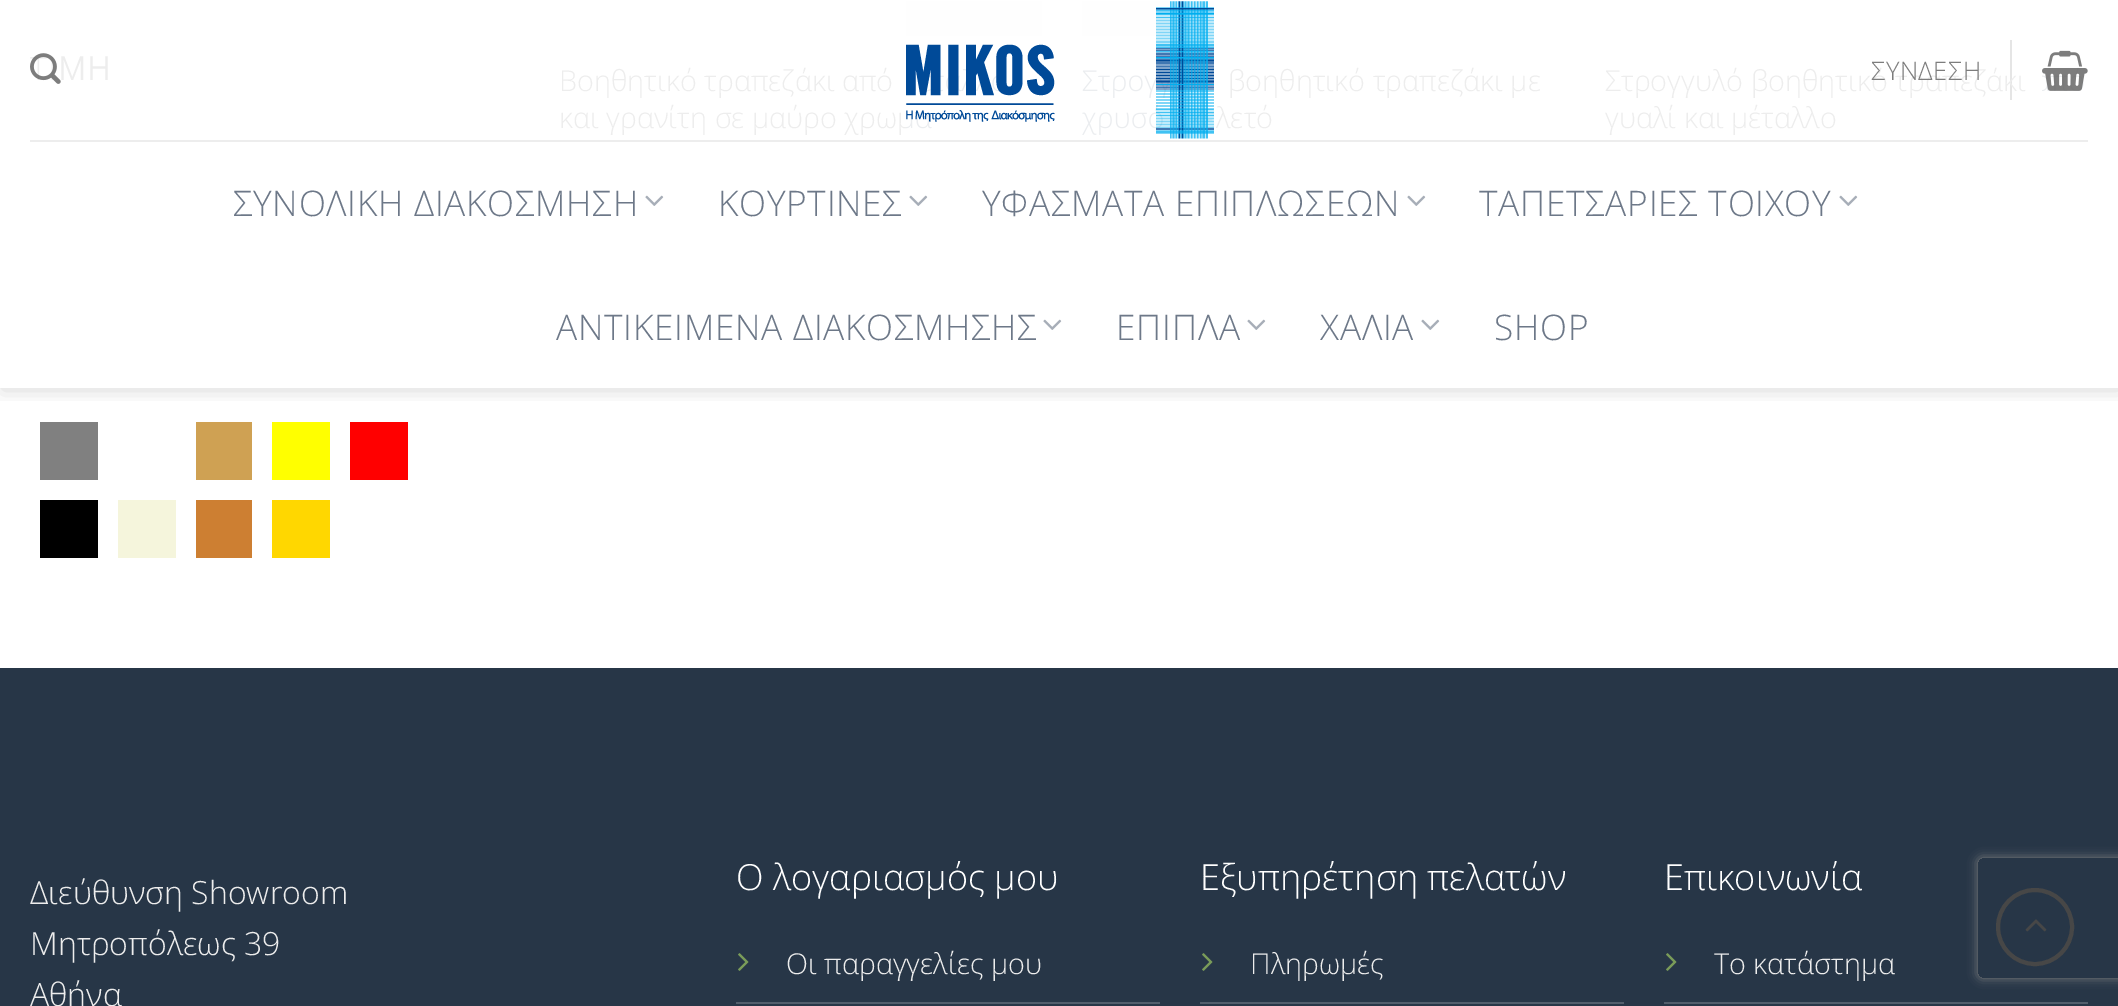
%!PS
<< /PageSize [2118 1006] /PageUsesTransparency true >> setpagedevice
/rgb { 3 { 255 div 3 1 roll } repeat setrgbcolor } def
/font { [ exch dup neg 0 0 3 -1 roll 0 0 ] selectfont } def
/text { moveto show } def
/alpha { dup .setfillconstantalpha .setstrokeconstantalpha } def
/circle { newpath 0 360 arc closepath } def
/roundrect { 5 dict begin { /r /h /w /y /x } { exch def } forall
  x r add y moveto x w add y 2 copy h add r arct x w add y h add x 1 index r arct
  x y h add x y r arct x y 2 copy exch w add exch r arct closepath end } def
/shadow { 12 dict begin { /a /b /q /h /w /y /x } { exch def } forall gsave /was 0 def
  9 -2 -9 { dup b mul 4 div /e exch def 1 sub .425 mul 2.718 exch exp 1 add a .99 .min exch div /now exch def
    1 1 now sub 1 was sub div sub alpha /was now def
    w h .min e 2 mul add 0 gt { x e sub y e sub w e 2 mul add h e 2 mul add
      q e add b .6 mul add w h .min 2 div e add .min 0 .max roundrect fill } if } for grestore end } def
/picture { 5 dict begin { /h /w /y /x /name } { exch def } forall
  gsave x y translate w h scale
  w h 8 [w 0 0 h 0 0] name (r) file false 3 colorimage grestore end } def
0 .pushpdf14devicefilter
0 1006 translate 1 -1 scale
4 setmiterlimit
255 255 255 rgb
0 0 2118 1006 rectfill
128 128 128 rgb
40 422 58 58 rectfill
207 161 83 rgb
196 422 56 58 rectfill
255 255 0 rgb
272 422 58 58 rectfill
255 0 0 rgb
350 422 58 58 rectfill
0 0 0 rgb
40 500 58 58 rectfill
245 245 220 rgb
118 500 58 58 rectfill
205 127 50 rgb
196 500 56 58 rectfill
255 215 0 rgb
272 500 58 58 rectfill
gsave
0 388 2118 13 rectclip
0 0 0 rgb
2 2 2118 388 0 10 0.15 shadow
grestore
0.1 alpha
0 0 0 rgb
2010 40 2 60 rectfill
1 alpha
(img_03.rgb) 2042 50 46 41 picture
237 237 237 rgb
30 140 2058 2 rectfill
(img_04.rgb) 645 195 19 11 picture
(img_04.rgb) 909 195 19 11 picture
(img_04.rgb) 1407 195 19 11 picture
(img_04.rgb) 1839 195 19 11 picture
(img_04.rgb) 1043 319 19 11 picture
(img_04.rgb) 1247 319 19 11 picture
(img_04.rgb) 1421 319 19 11 picture
39 54 71 rgb
0 668 2118 338 rectfill
82 94 108 rgb
736 1002 424 2 rectfill
(img_05.rgb) 738 953 11 18 picture
1200 1002 424 2 rectfill
(img_05.rgb) 1202 953 11 18 picture
1664 1002 424 2 rectfill
(img_05.rgb) 1666 953 11 18 picture
gsave
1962 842 moveto 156 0 rlineto 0 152 rlineto -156 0 rlineto closepath 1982 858 moveto 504 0 rlineto 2 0 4 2 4 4 rcurveto 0 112 rlineto 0 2 -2 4 -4 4 rcurveto -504 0 rlineto -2 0 -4 -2 -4 -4 rcurveto 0 -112 rlineto 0 -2 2 -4 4 -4 rcurveto closepath eoclip newpath
128 128 128 rgb
1978 858 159 120 4 5 1 shadow
grestore
71 71 71 rgb
4 setlinewidth
2035 927 37 circle stroke
(img_06.rgb) 2025 919 22 13 picture
/OpenSans-Bold 32 font
237 237 237 rgb
30 80 moveto 1.5 0 (ΤΙΜΗ) ashow
/OpenSans-Light 28.75 font
(Βοηθητικό τραπεζάκι από) 559 91 text
(και γρανίτη σε μαύρο χρωμα) 559 128 text
(Στρογ) 1082 91 text
(βοηθητικό τραπεζάκι με) 1228 91 text
(χρυσ) 1082 128 text
(λετό) 1216 128 text
(Στρογγυλό βοηθητικό τραπεζάκι) 1605 91 text
(γυαλί και μέταλλο) 1605 128 text
(img_01.rgb) 30 53 31 31 picture
(img_02.rgb) 906 1 308 138 picture
/OpenSans-Light 25.5 font
125 125 125 rgb
1871 80 moveto 0.5 0 (ΣΥΝΔΕΣΗ) ashow
/OpenSans-Light 35.25 font
109 120 136 rgb
233 216 moveto 0.7 0 (ΣΥΝΟΛΙΚΗ ΔΙΑΚΟΣΜΗΣΗ) ashow
718 216 moveto 0.7 0 (ΚΟΥΡΤΙΝΕΣ) ashow
982 216 moveto 0.7 0 (ΥΦΑΣΜΑΤΑ ΕΠΙΠΛΩΣΕΩΝ) ashow
1479 216 moveto 0.7 0 (ΤΑΠΕΤΣΑΡΙΕΣ ΤΟΙΧΟΥ) ashow
556 340 moveto 0.7 0 (ΑΝΤΙΚΕΙΜΕΝΑ ΔΙΑΚΟΣΜΗΣΗΣ) ashow
1116 340 moveto 0.7 0 (ΕΠΙΠΛΑ) ashow
1320 340 moveto 0.7 0 (ΧΑΛΙΑ) ashow
1494 340 moveto 0.7 0 (SHOP) ashow
/OpenSans-Light 32 font
237 237 237 rgb
(Διεύθυνση Showroom) 30 904 text
(Μητροπόλεως 39) 30 955 text
(Αθήνα) 30 1006 text
/OpenSans-Light 36 font
255 255 255 rgb
(O λογαριασμός μου) 736 890 text
/OpenSans-Light 28.75 font
237 237 237 rgb
(Οι παραγγελίες μου) 786 974 text
/OpenSans-Light 36 font
255 255 255 rgb
(Εξυπηρέτηση πελατών) 1200 890 text
/OpenSans-Light 28.75 font
237 237 237 rgb
(Πληρωμές) 1250 974 text
/OpenSans-Light 36 font
255 255 255 rgb
(Επικοινωνία) 1664 890 text
/OpenSans-Light 28.75 font
237 237 237 rgb
(Το κατάστημα) 1714 974 text
.poppdf14devicefilter showpage
